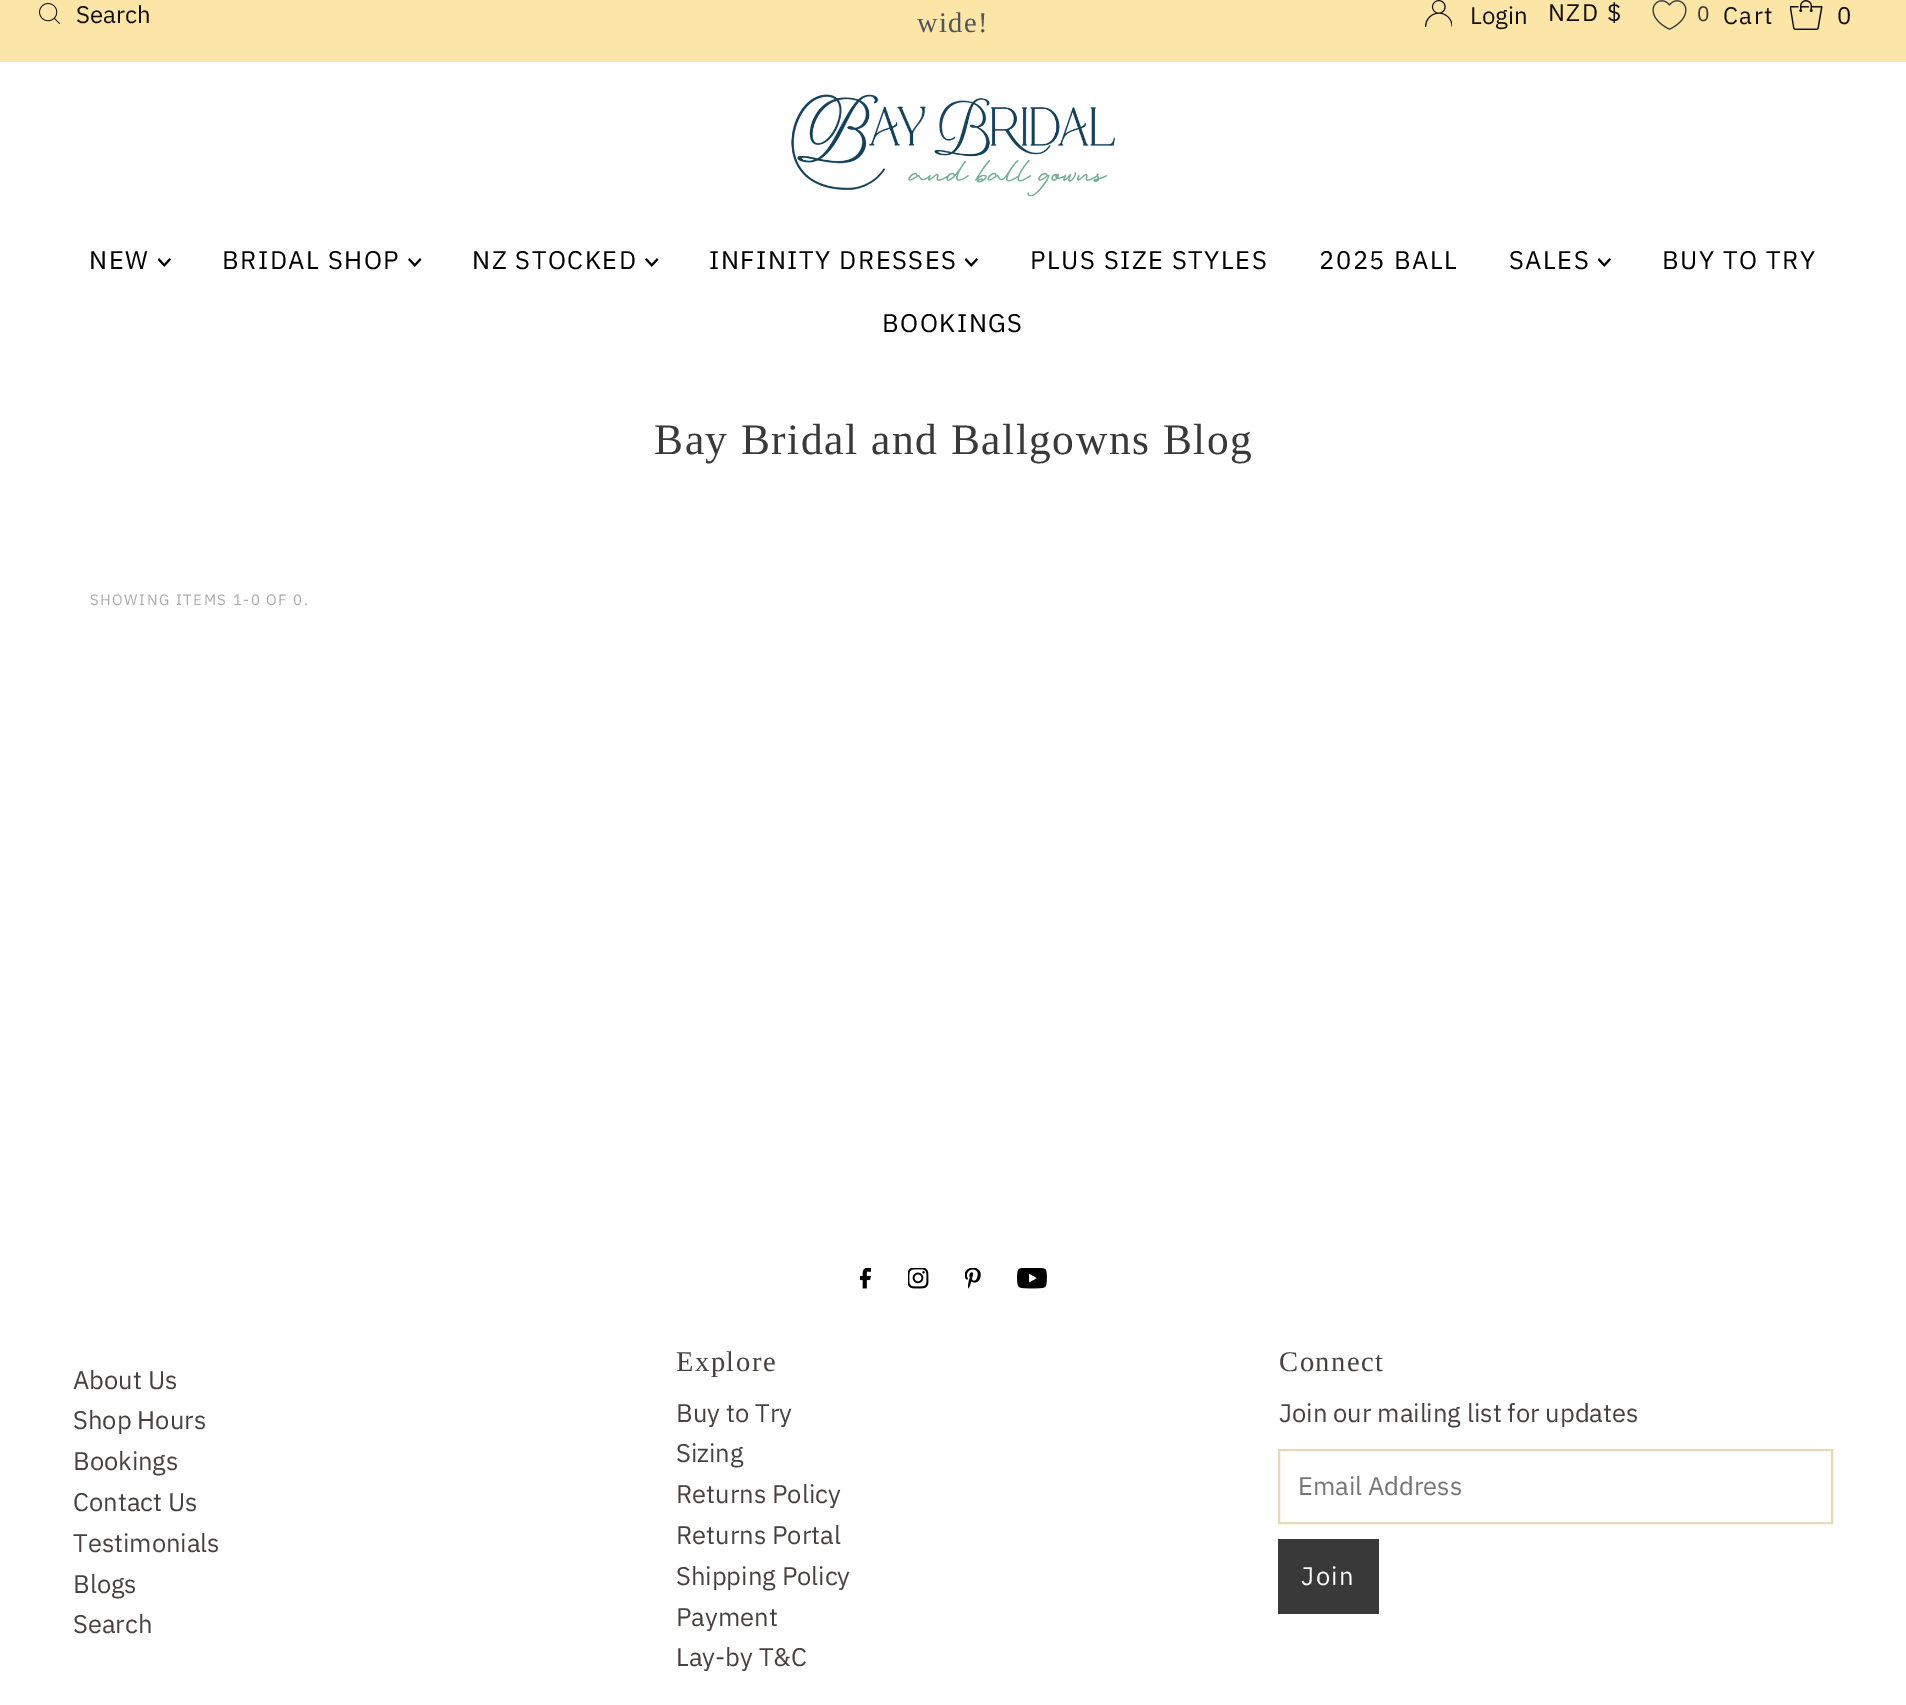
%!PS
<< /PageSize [1906 1705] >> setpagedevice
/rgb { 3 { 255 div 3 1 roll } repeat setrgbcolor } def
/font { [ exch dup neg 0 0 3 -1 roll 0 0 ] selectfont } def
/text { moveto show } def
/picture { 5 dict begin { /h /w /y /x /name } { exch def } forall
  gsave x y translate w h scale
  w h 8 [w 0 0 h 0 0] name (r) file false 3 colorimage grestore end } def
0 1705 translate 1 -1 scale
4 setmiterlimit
255 255 255 rgb
0 0 1906 1705 rectfill
252 230 167 rgb
0 0 1906 62 rectfill
(img_01.rgb) 39 3 21 21 picture
(img_02.rgb) 1425 0 27 27 picture
(img_03.rgb) 1652 0 35 30 picture
(img_04.rgb) 1790 0 33 30 picture
(img_05.rgb) 791 94 324 103 picture
(img_06.rgb) 158 258 13 9 picture
(img_07.rgb) 408 258 14 9 picture
(img_07.rgb) 645 258 14 9 picture
(img_06.rgb) 965 258 13 9 picture
(img_06.rgb) 1598 258 13 9 picture
(img_08.rgb) 860 1268 12 21 picture
(img_09.rgb) 908 1268 21 21 picture
(img_10.rgb) 965 1268 16 21 picture
(img_11.rgb) 1017 1268 30 21 picture
233 218 183 rgb
2 setlinewidth
1279 1450 553 73 rectstroke
57 57 57 rgb
1278 1539 101 75 rectfill
/IBMPlexSans-Regular 24 font
21 14 14 rgb
(Search) 76 23 text
/LiberationSerif-Regular 28.5 font
84 84 84 rgb
917 32 moveto 1.5 0 (wide!) ashow
/IBMPlexSans-Regular 24 font
21 14 14 rgb
(Login) 1470 24 text
1548 21 moveto 1.5 0 (NZD $) ashow
/IBMPlexSans-Regular 21 font
57 57 57 rgb
(0) 1697 21 text
/IBMPlexSans-Regular 24 font
21 14 14 rgb
1723 24 moveto 1.5 0 (Cart) ashow
1837 24 moveto 1.5 0 (0) ashow
/IBMPlexSans-Regular 25.5 font
0 0 0 rgb
89 269 moveto 1.5 0 (NEW) ashow
222 269 moveto 1.5 0 (BRIDAL SHOP) ashow
472 269 moveto 1.5 0 (NZ STOCKED) ashow
709 269 moveto 1.5 0 (INFINITY DRESSES) ashow
1030 269 moveto 1.5 0 (PLUS SIZE STYLES) ashow
1319 269 moveto 1.5 0 (2025 BALL) ashow
1509 269 moveto 1.5 0 (SALES) ashow
1662 269 moveto 1.5 0 (BUY TO TRY) ashow
882 332 moveto 1.5 0 (BOOKINGS) ashow
/LiberationSerif-Regular 43.5 font
57 57 57 rgb
654 454 moveto 1.5 0 (Bay Bridal and Ballgowns Blog) ashow
/IBMPlexSans-Regular 15 font
170 170 170 rgb
90 605 moveto 1.5 0 (SHOWING ITEMS 1-0 OF 0.) ashow
/IBMPlexSans-Regular 25.5 font
72 65 65 rgb
(About Us) 73 1389 text
(Shop Hours) 73 1429 text
(Bookings) 73 1470 text
(Contact Us) 73 1511 text
(Testimonials) 73 1552 text
(Blogs) 73 1593 text
(Search) 73 1633 text
/LiberationSerif-Regular 28.5 font
676 1371 moveto 1.5 0 (Explore) ashow
/IBMPlexSans-Regular 25.5 font
(Buy to Try) 676 1422 text
(Sizing) 676 1462 text
(Returns Policy) 676 1503 text
(Returns Portal) 676 1544 text
(Shipping Policy) 676 1585 text
(Payment) 676 1626 text
(Lay-by T&C) 676 1666 text
/LiberationSerif-Regular 28.5 font
1279 1371 moveto 1.5 0 (Connect) ashow
/IBMPlexSans-Regular 25.5 font
(Join our mailing list for updates) 1279 1422 text
117 117 117 rgb
(Email Address) 1298 1495 text
255 255 255 rgb
1301 1585 moveto 1.5 0 (Join) ashow
showpage
